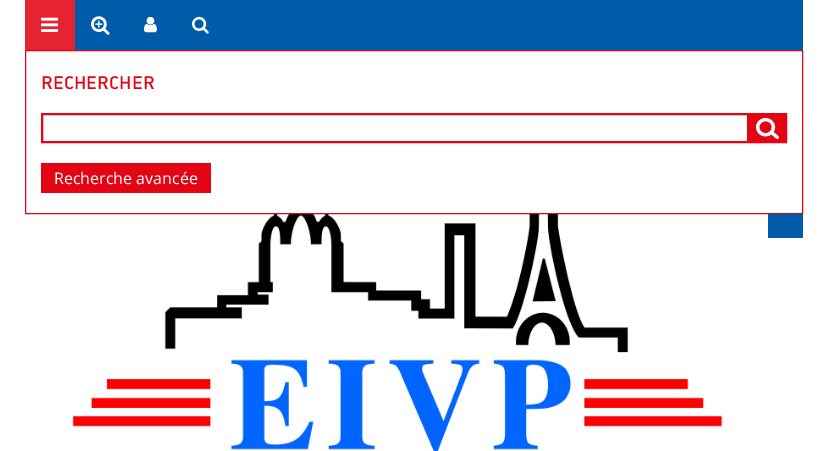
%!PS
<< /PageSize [828 451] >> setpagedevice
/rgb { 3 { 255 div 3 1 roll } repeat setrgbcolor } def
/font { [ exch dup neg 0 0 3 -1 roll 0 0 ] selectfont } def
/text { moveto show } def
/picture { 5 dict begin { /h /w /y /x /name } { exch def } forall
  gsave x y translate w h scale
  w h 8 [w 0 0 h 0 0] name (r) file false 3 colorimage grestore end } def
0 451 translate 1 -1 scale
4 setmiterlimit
255 255 255 rgb
0 0 828 451 rectfill
0 92 169 rgb
75 0 728 50 rectfill
230 35 48 rgb
25 0 50 50 rectfill
(img_01.rgb) 41 17 18 15 picture
(img_02.rgb) 91 16 19 19 picture
(img_03.rgb) 144 16 13 17 picture
(img_04.rgb) 192 16 17 18 picture
(img_05.rgb) 25 214 743 237 picture
227 5 19 rgb
25.5 50.5 777 163 rectstroke
2 setlinewidth
42 114 744 28 rectstroke
747 115 38 26 rectfill
(img_06.rgb) 756 118 23 21 picture
41 163 170 30 rectfill
0 92 169 rgb
768 214 35 24 rectfill
/DIN-Medium 18 font
227 5 19 rgb
(RECHERCHER) 41 89 text
/OpenSans-Regular 16 font
255 255 255 rgb
(Recherche avancée) 54 184 text
showpage
